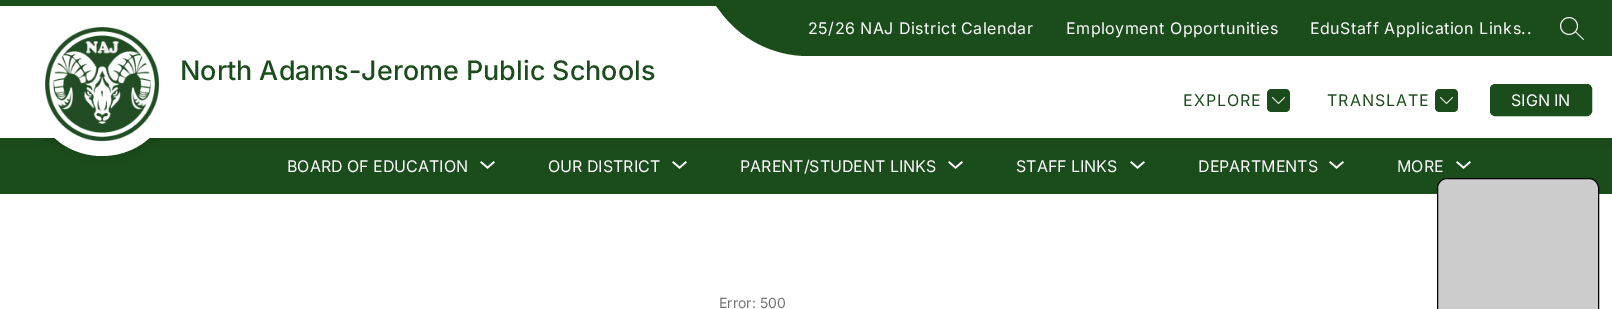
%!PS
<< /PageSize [1612 309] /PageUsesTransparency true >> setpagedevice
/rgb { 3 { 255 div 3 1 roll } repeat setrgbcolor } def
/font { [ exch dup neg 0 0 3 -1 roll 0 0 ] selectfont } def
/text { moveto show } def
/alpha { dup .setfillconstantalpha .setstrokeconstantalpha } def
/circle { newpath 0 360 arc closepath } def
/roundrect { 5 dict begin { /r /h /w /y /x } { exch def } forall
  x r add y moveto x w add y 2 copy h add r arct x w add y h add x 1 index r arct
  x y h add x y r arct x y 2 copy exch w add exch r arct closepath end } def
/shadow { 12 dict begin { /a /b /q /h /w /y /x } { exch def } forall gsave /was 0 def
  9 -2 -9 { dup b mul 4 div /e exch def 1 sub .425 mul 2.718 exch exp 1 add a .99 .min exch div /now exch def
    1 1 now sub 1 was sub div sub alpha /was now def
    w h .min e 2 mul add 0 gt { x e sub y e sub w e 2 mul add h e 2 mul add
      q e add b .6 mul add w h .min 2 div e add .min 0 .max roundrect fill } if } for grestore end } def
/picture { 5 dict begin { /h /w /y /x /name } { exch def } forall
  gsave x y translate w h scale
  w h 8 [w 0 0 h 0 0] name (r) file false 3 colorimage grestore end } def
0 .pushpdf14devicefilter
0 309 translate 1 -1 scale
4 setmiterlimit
255 255 255 rgb
0 0 1612 309 rectfill
27 76 27 rgb
0 138 1612 56 rectfill
0 0 0 rgb
0 4 1612 138 0 5 0.1 shadow
30 16 144 144 72 5 0.1 shadow
255 255 255 rgb
102 84 72 circle fill
0 6 1612 132 rectfill
27 76 27 rgb
0 0 717 6 rectfill
(img_01.rgb) 45 27 115 115 picture
810 0 802 56 rectfill
808 56 moveto 2 0 rlineto 0 -56 rlineto -96 0 rlineto -1 0 -1 1 -1 2 rcurveto 7 9 rlineto 20 28 53 45 88 45 rcurveto closepath fill
(img_02.rgb) 1560 17 24 23 picture
(img_03.rgb) 1267 89 23 23 picture
(img_03.rgb) 1435 89 23 23 picture
1490.5 84.5 101 31 4.5 roundrect gsave fill grestore
stroke
(img_04.rgb) 480 161 15 8 picture
(img_04.rgb) 672 161 15 8 picture
(img_04.rgb) 948 161 15 8 picture
(img_04.rgb) 1130 161 15 8 picture
(img_04.rgb) 1329 161 15 8 picture
(img_04.rgb) 1456 161 15 8 picture
204 204 204 rgb
1437.5 178.5 161 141 9.5 roundrect gsave fill grestore
0 0 0 rgb
stroke
/Inter-Medium 26.9 font
27 76 27 rgb
(North Adams-Jerome Public Schools) 180 80 text
/Inter-Regular 16 font
255 255 255 rgb
808 34 moveto 0.5 0 (25/26 NAJ District Calendar) ashow
1066 34 moveto 0.5 0 (Employment Opportunities) ashow
1310 34 moveto 0.5 0 (EduStaff Application Links..) ashow
27 76 27 rgb
1183 106 moveto 1 0 (EXPLORE) ashow
1327 106 moveto 1 0 (TRANSLATE) ashow
255 255 255 rgb
(SIGN IN) 1511 106 text
(BOARD OF EDUCATION) 287 172 text
(OUR DISTRICT) 548 172 text
(PARENT/STUDENT LINKS) 740 172 text
(STAFF LINKS) 1016 172 text
(DEPARTMENTS) 1198 172 text
(MORE) 1397 172 text
/Inter-Regular 14 font
116 116 116 rgb
(Error: 500) 719 308 text
.poppdf14devicefilter showpage
